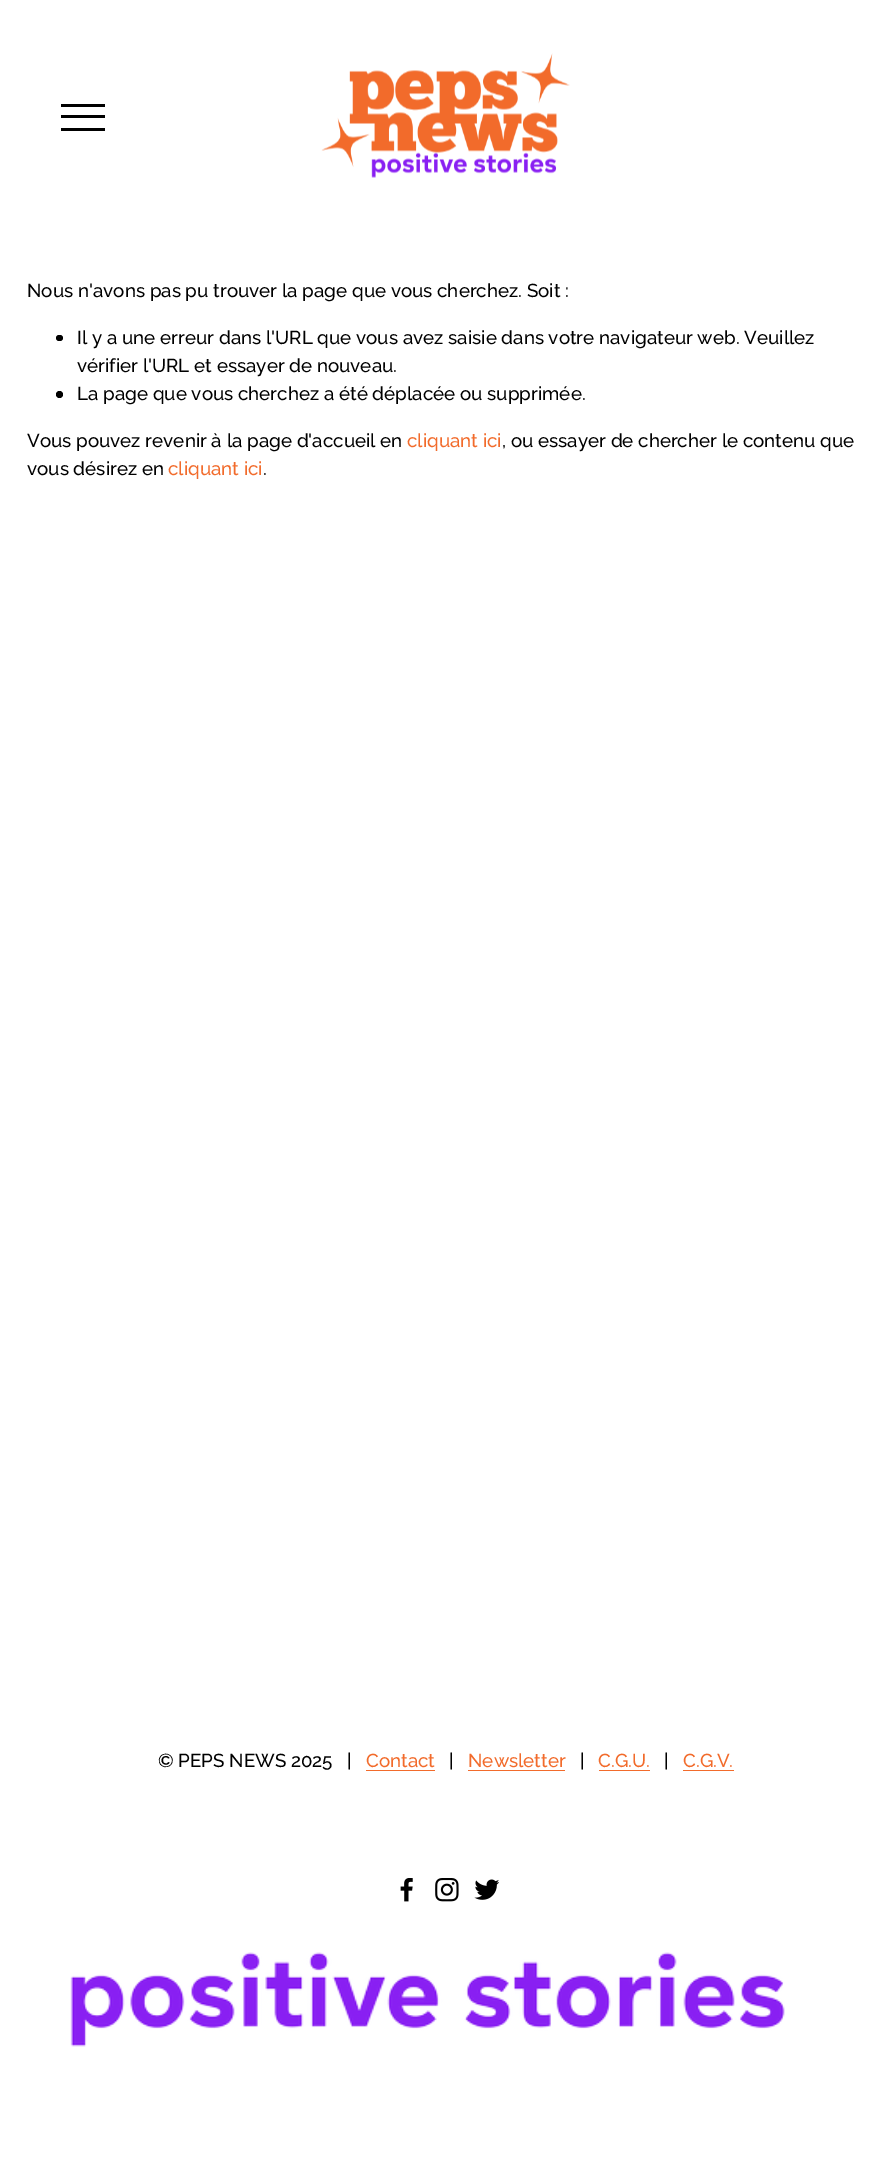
%!PS
<< /PageSize [891 2169] >> setpagedevice
/rgb { 3 { 255 div 3 1 roll } repeat setrgbcolor } def
/font { [ exch dup neg 0 0 3 -1 roll 0 0 ] selectfont } def
/text { moveto show } def
/circle { newpath 0 360 arc closepath } def
/roundrect { 5 dict begin { /r /h /w /y /x } { exch def } forall
  x r add y moveto x w add y 2 copy h add r arct x w add y h add x 1 index r arct
  x y h add x y r arct x y 2 copy exch w add exch r arct closepath end } def
/picture { 5 dict begin { /h /w /y /x /name } { exch def } forall
  gsave x y translate w h scale
  w h 8 [w 0 0 h 0 0] name (r) file false 3 colorimage grestore end } def
0 2169 translate 1 -1 scale
4 setmiterlimit
255 255 255 rgb
0 0 891 2169 rectfill
0 0 0 rgb
61 104 44 3 rectfill
61 115 44 3 rectfill
61 128 44 3 rectfill
(img_01.rgb) 321 53 249 125 picture
56 335 7 6 3 roundrect fill
59.5 394.5 3.5 circle fill
242 107 43 rgb
366 1770 69 1 rectfill
468 1770 97 1 rectfill
599 1770 51 1 rectfill
683 1770 51 1 rectfill
(img_02.rgb) 400 1878 13 24 picture
(img_03.rgb) 435 1878 24 24 picture
(img_04.rgb) 474 1879 25 21 picture
(img_05.rgb) 70 1952 715 95 picture
/Raleway-Medium 18.75 font
0 0 0 rgb
(Nous n'avons pas pu trouver la page que vous cherchez. Soit :) 27 297 text
(Il y a une erreur dans l'URL que vous avez saisie dans votre navigateur web. Veuillez) 77 344 text
(vérifier l'URL et essayer de nouveau.) 77 372 text
(La page que vous cherchez a été déplacée ou supprimée.) 77 400 text
(Vous pouvez revenir à la page d'accueil en) 27 447 text
242 107 43 rgb
(cliquant ici) 407 447 text
0 0 0 rgb
(, ou essayer de chercher le contenu que) 502 447 text
(vous désirez en) 27 475 text
242 107 43 rgb
(cliquant ici) 168 475 text
0 0 0 rgb
(.) 263 475 text
(© PEPS NEWS 2025) 158 1767 text
(|) 347 1767 text
242 107 43 rgb
(Contact) 366 1767 text
0 0 0 rgb
(|) 449 1767 text
242 107 43 rgb
(Newsletter) 468 1767 text
0 0 0 rgb
(|) 580 1767 text
242 107 43 rgb
(C.G.U.) 598 1767 text
0 0 0 rgb
(|) 664 1767 text
242 107 43 rgb
(C.G.V.) 683 1767 text
showpage
